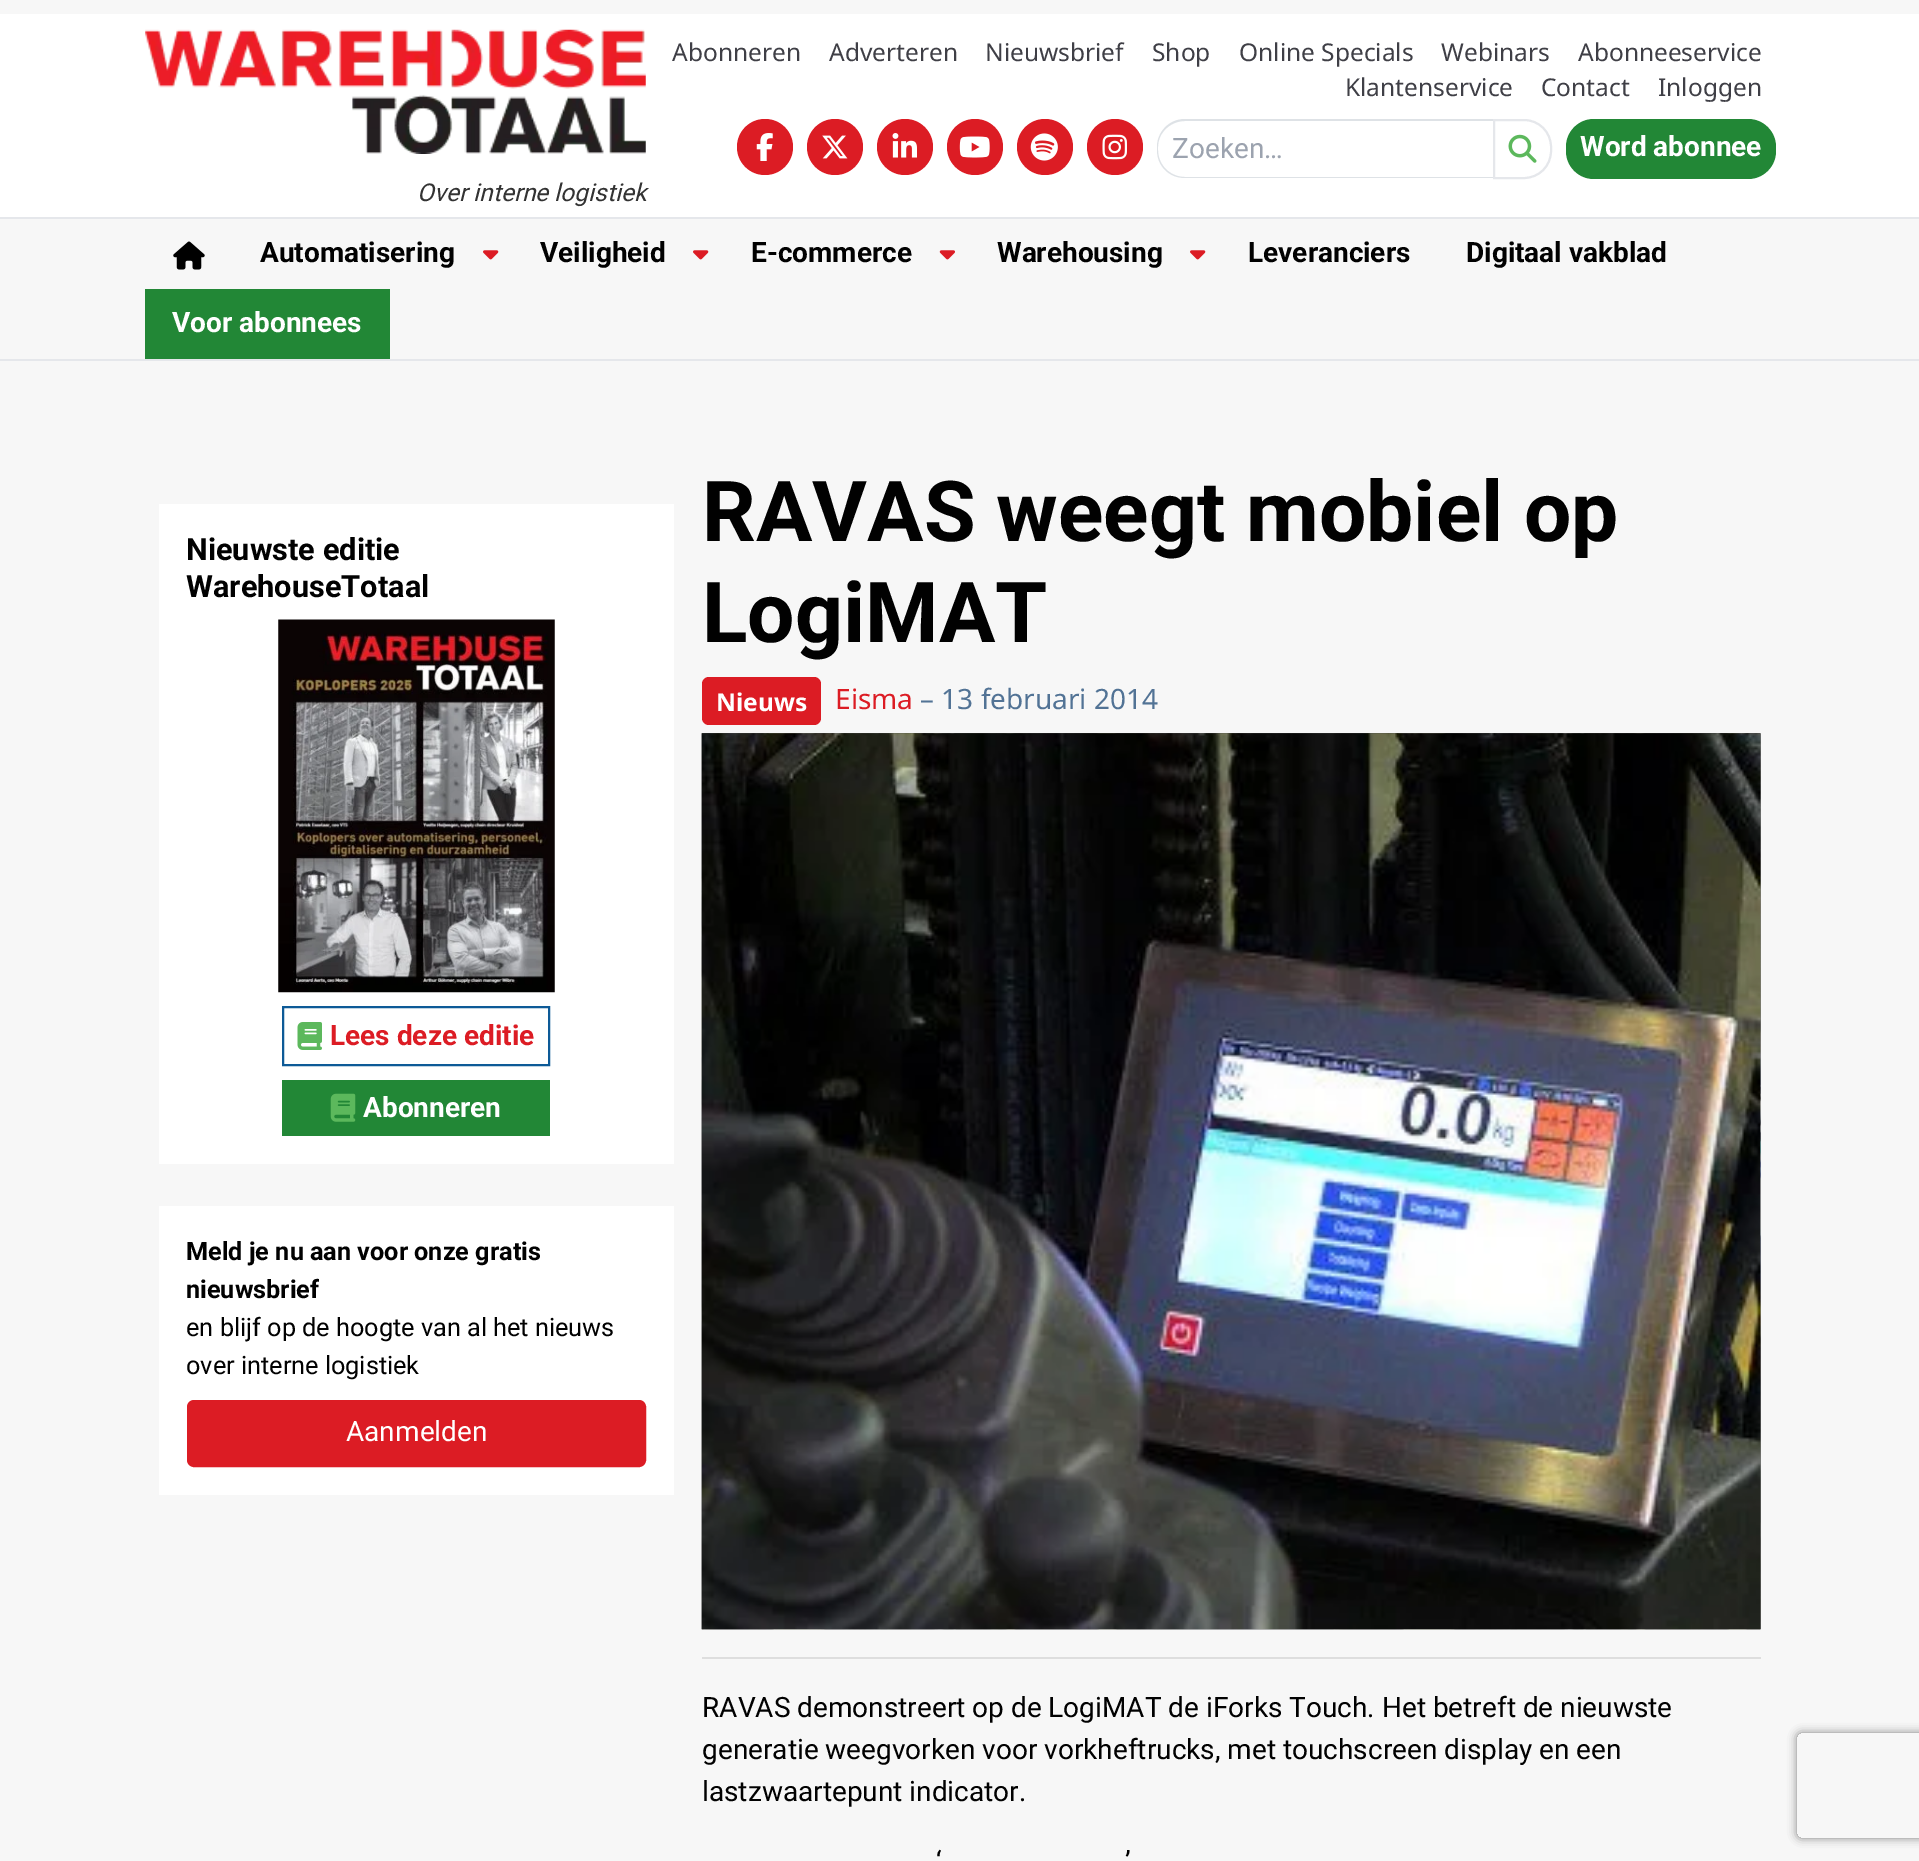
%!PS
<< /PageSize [1919 1861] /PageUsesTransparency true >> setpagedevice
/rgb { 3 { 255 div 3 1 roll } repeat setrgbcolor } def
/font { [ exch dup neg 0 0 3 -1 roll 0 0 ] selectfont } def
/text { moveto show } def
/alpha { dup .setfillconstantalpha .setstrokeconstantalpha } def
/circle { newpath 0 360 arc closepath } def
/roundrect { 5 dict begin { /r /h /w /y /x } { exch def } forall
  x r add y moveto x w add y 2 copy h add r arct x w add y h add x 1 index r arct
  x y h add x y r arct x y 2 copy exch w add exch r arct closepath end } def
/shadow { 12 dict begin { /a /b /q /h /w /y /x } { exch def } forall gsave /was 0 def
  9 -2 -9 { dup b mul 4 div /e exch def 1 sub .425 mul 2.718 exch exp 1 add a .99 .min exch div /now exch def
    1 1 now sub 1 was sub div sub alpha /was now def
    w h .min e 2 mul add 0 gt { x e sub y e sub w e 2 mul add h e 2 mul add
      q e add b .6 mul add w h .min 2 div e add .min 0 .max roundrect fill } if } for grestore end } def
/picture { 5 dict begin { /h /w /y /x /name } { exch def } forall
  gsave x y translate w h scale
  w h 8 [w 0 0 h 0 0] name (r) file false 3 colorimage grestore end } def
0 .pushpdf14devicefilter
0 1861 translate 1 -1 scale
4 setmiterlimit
247 247 247 rgb
0 0 1919 1861 rectfill
255 255 255 rgb
0 14 1919 203 rectfill
220 28 36 rgb
765 147 28 circle fill
(img_01.rgb) 756 133 17 28 picture
835 147 28 circle fill
(img_02.rgb) 822 135 26 24 picture
905 147 28 circle fill
(img_03.rgb) 892 133 25 25 picture
975 147 28 circle fill
(img_04.rgb) 959 136 31 22 picture
1045 147 28 circle fill
(img_05.rgb) 1030 133 28 28 picture
1115 147 28 circle fill
(img_06.rgb) 1102 134 25 26 picture
222 226 230 rgb
1185 119 moveto 308 0 rlineto 0 59 rlineto -308 0 rlineto -16 0 -28 -12 -28 -28 rcurveto 0 -3 rlineto 0 -15 12 -28 28 -28 rcurveto closepath 1185 121 moveto 308 0 rlineto 0 56 rlineto -308 0 rlineto -15 0 -27 -12 -27 -27 rcurveto 0 -3 rlineto 0 -14 12 -26 27 -26 rcurveto closepath eofill
229 231 235 rgb
2 setlinewidth
1494 120 moveto 30 0 rlineto 15 0 27 12 27 27 rcurveto 0 4 rlineto 0 15 -12 27 -27 27 rcurveto -30 0 rlineto closepath stroke
(img_07.rgb) 1508 134 29 29 picture
34 135 54 rgb
1566 119 210 60 28 roundrect fill
(img_08.rgb) 145 29 501 125 picture
229 231 235 rgb
0 217 1919 2 rectfill
0 359 1919 2 rectfill
(img_09.rgb) 173 241 32 29 picture
(img_10.rgb) 483 250 16 10 picture
(img_10.rgb) 693 250 16 10 picture
(img_11.rgb) 939 250 16 10 picture
(img_10.rgb) 1190 250 16 10 picture
34 135 54 rgb
145 289 245 70 rectfill
255 255 255 rgb
159 504 515 660 rectfill
(img_12.rgb) 278 619 277 374 picture
13 90 151 rgb
283 1007 266 58 rectstroke
(img_13.rgb) 297 1022 25 28 picture
34 135 54 rgb
282 1080 268 56 rectfill
(img_14.rgb) 330 1093 26 29 picture
255 255 255 rgb
159 1206 515 289 rectfill
220 28 36 rgb
188 1401 457 65 6 roundrect gsave fill grestore
stroke
702 677 119 48 7 roundrect fill
(img_15.rgb) 701 733 1060 897 picture
(img_16.rgb) 701 733 1060 897 picture
222 222 222 rgb
702 1657 1059 2 rectfill
gsave
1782 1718 moveto 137 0 rlineto 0 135 rlineto -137 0 rlineto closepath 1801 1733 moveto 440 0 rlineto 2 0 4 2 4 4 rcurveto 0 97 rlineto 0 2 -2 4 -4 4 rcurveto -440 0 rlineto -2 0 -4 -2 -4 -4 rcurveto 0 -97 rlineto 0 -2 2 -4 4 -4 rcurveto closepath eoclip newpath
128 128 128 rgb
1797 1733 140 105 4 4.5 1 shadow
grestore
/NotoSans-Regular 24.5 font
63 63 70 rgb
(Abonneren) 672 61 text
(Adverteren) 829 61 text
(Nieuwsbrief) 985 61 text
(Shop) 1152 61 text
(Online Specials) 1239 61 text
(Webinars) 1441 61 text
(Abonneeservice) 1578 61 text
(Klantenservice) 1345 96 text
(Contact) 1541 96 text
(Inloggen) 1658 96 text
/Roboto-Regular 28 font
156 163 175 rgb
(Zoeken…) 1172 158 text
/Roboto-Bold 28 font
255 255 255 rgb
(Word abonnee) 1580 156 text
/Roboto-Italic 24.5 font
51 51 51 rgb
(Over interne logistiek) 417 201 text
/Roboto-Bold 28 font
1 1 1 rgb
(Automatisering) 260 262 text
(Veiligheid) 540 262 text
(E-commerce) 751 262 text
(Warehousing) 997 262 text
(Leveranciers) 1248 262 text
(Digitaal vakblad) 1466 262 text
255 255 255 rgb
(Voor abonnees) 172 332 text
/Roboto-Bold 30.75 font
1 1 1 rgb
(Nieuwste editie) 186 560 text
(WarehouseTotaal) 186 597 text
/Roboto-Bold 28 font
220 28 36 rgb
(Lees deze editie) 330 1045 text
255 255 255 rgb
(Abonneren) 363 1117 text
/Roboto-Bold 25.25 font
1 1 1 rgb
(Meld je nu aan voor onze gratis) 186 1260 text
(nieuwsbrief) 186 1298 text
/Roboto-Regular 25.25 font
(en blijf op de hoogte van al het nieuws) 186 1336 text
(over interne logistiek) 186 1374 text
/Roboto-Regular 28 font
255 255 255 rgb
(Aanmelden) 346 1441 text
/Roboto-Bold 84 font
1 1 1 rgb
(RAVAS weegt mobiel op) 702 541 text
(LogiMAT) 702 642 text
/NotoSans-Bold 24.5 font
255 255 255 rgb
(Nieuws) 716 711 text
/NotoSans-Regular 28 font
220 28 36 rgb
(Eisma) 835 709 text
82 115 149 rgb
(– 13 februari 2014) 920 709 text
/Roboto-Regular 28 font
1 1 1 rgb
(RAVAS demonstreert op de LogiMAT de iForks Touch. Het betreft de nieuwste) 702 1717 text
(generatie weegvorken voor vorkheftrucks, met touchscreen display en een) 702 1759 text
(lastzwaartepunt indicator.) 702 1801 text
(‘) 936 1871 text
(’) 1125 1871 text
.poppdf14devicefilter showpage
